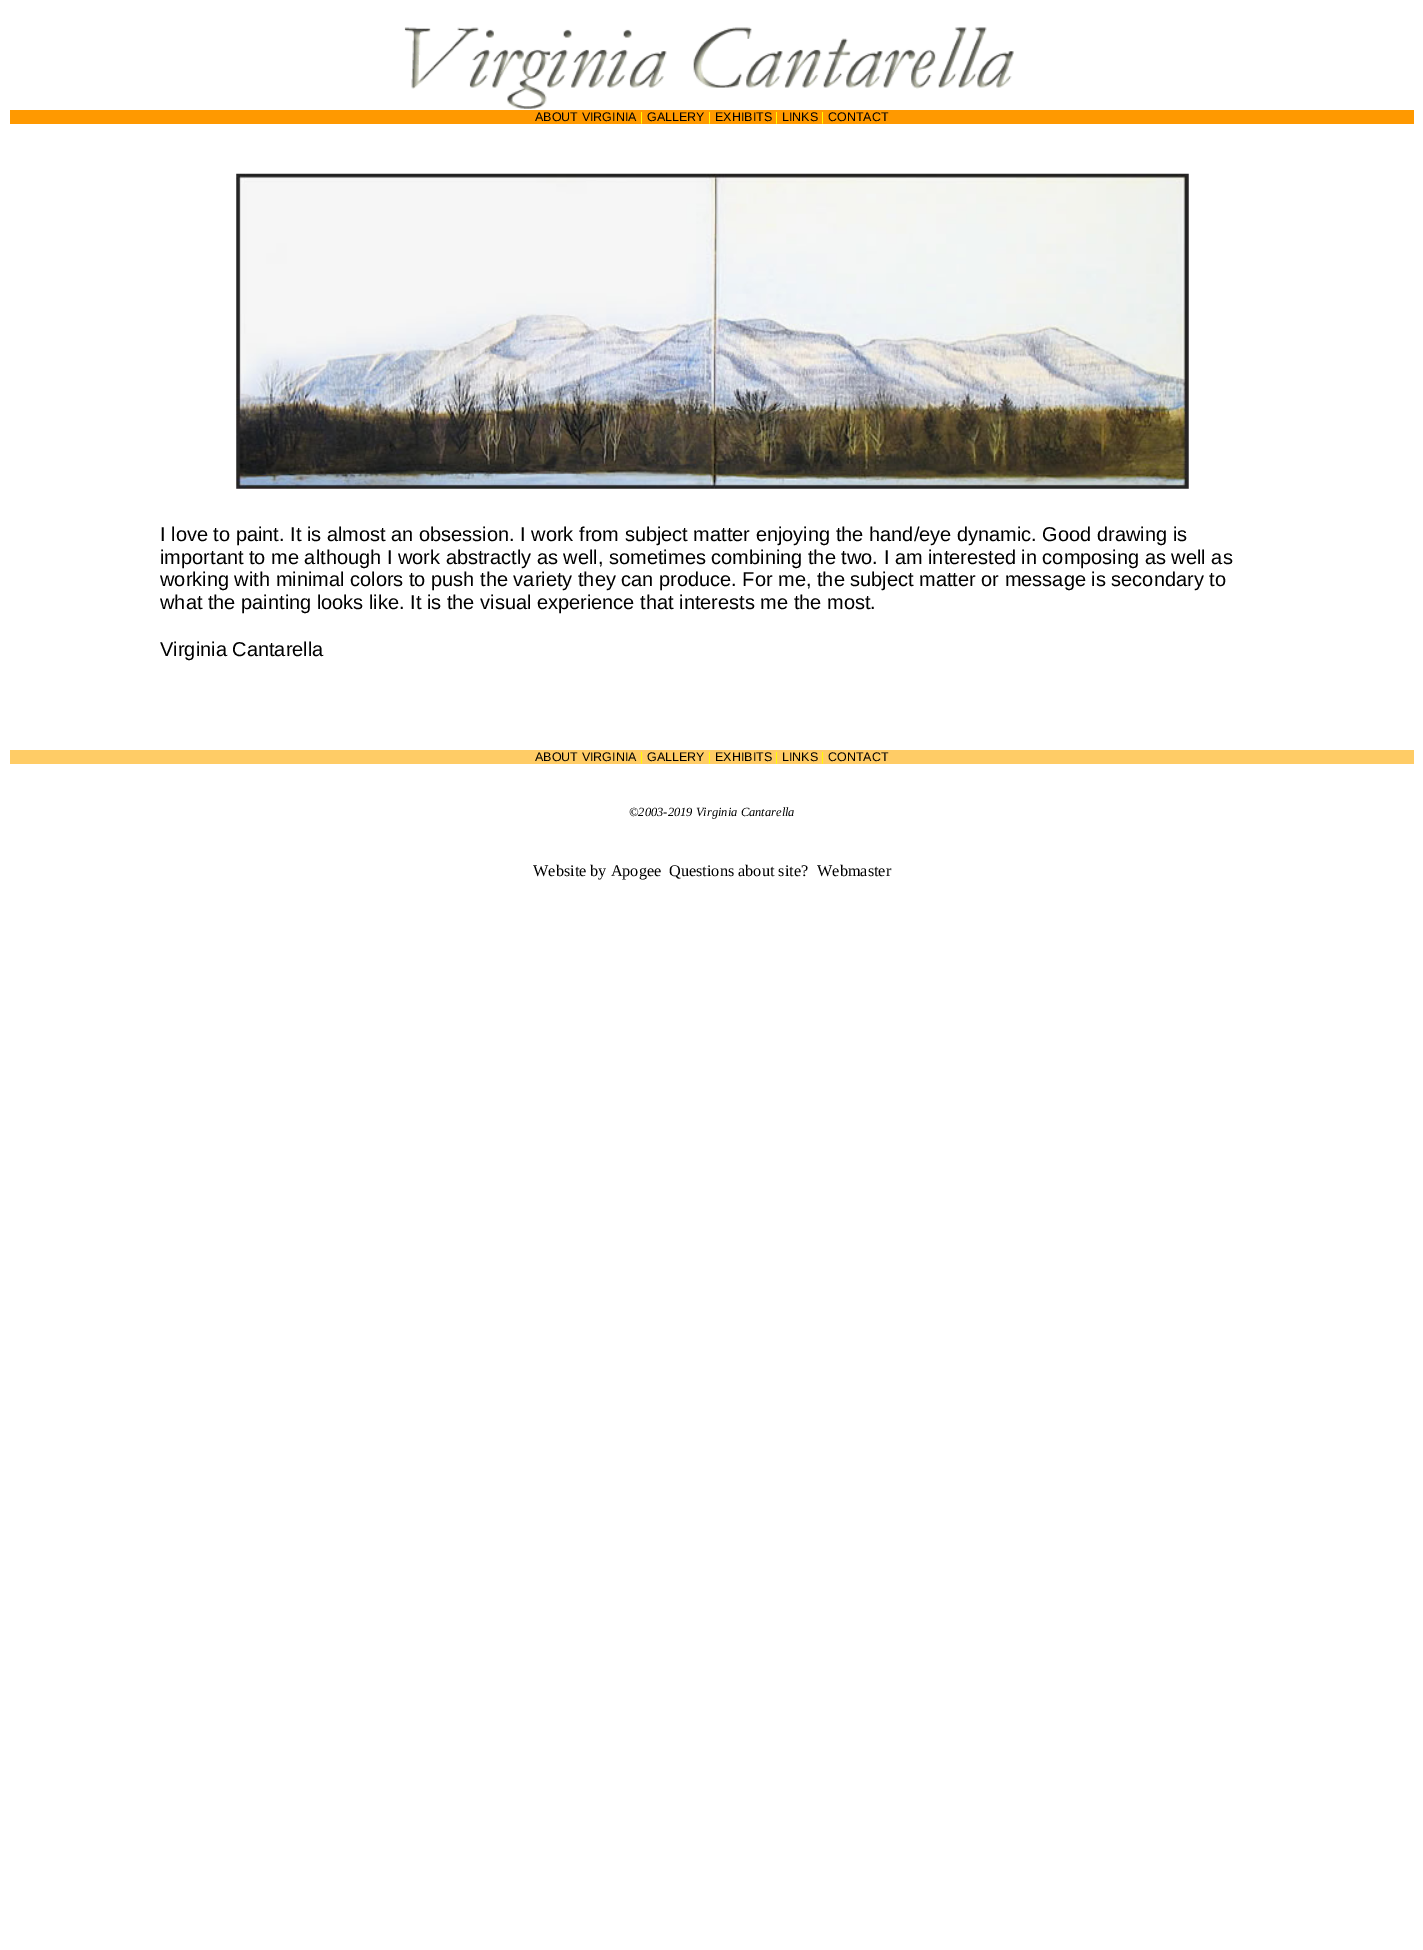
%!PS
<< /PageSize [1423 1950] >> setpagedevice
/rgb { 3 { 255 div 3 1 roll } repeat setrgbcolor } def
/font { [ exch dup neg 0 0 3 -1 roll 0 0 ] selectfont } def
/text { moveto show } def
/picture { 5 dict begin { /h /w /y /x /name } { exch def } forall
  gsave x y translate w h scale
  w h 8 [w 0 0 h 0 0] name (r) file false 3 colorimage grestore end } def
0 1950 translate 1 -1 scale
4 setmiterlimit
255 255 255 rgb
0 0 1423 1950 rectfill
(img_01.rgb) 404 27 610 82 picture
255 153 0 rgb
10 110 1404 14 rectfill
(img_02.rgb) 236 173 953 316 picture
255 204 102 rgb
10 750 1404 14 rectfill
/LiberationSans-Regular 12.5 font
0 0 0 rgb
(ABOUT VIRGINIA) 535 121 text
255 255 0 rgb
(|) 640 121 text
0 0 0 rgb
(GALLERY) 647 121 text
255 255 0 rgb
(|) 708 121 text
0 0 0 rgb
(EXHIBITS) 715 121 text
255 255 0 rgb
(|) 775 121 text
0 0 0 rgb
(LINKS) 782 121 text
255 255 0 rgb
(|) 821 121 text
0 0 0 rgb
(CONTACT) 828 121 text
/LiberationSans-Regular 20 font
(I love to paint. It is almost an obsession. I work from subject matter enjoying the hand/eye dynamic. Good drawing is) 160 541 text
(important to me although I work abstractly as well, sometimes combining the two. I am interested in composing as well as) 160 564 text
(working with minimal colors to push the variety they can produce. For me, the subject matter or message is secondary to) 160 586 text
(what the painting looks like. It is the visual experience that interests me the most.) 160 609 text
(Virginia Cantarella) 160 656 text
/LiberationSans-Regular 12.5 font
(ABOUT VIRGINIA) 535 761 text
255 255 0 rgb
(|) 640 761 text
0 0 0 rgb
(GALLERY) 647 761 text
255 255 0 rgb
(|) 708 761 text
0 0 0 rgb
(EXHIBITS) 715 761 text
255 255 0 rgb
(|) 775 761 text
0 0 0 rgb
(LINKS) 782 761 text
255 255 0 rgb
(|) 821 761 text
0 0 0 rgb
(CONTACT) 828 761 text
/LiberationSerif-Italic 12.5 font
(©2003-2019 Virginia Cantarella) 629 816 text
/LiberationSerif-Regular 16.25 font
(Website by Apogee) 533 876 text
(Questions about site?) 669 876 text
(Webmaster) 817 876 text
showpage
